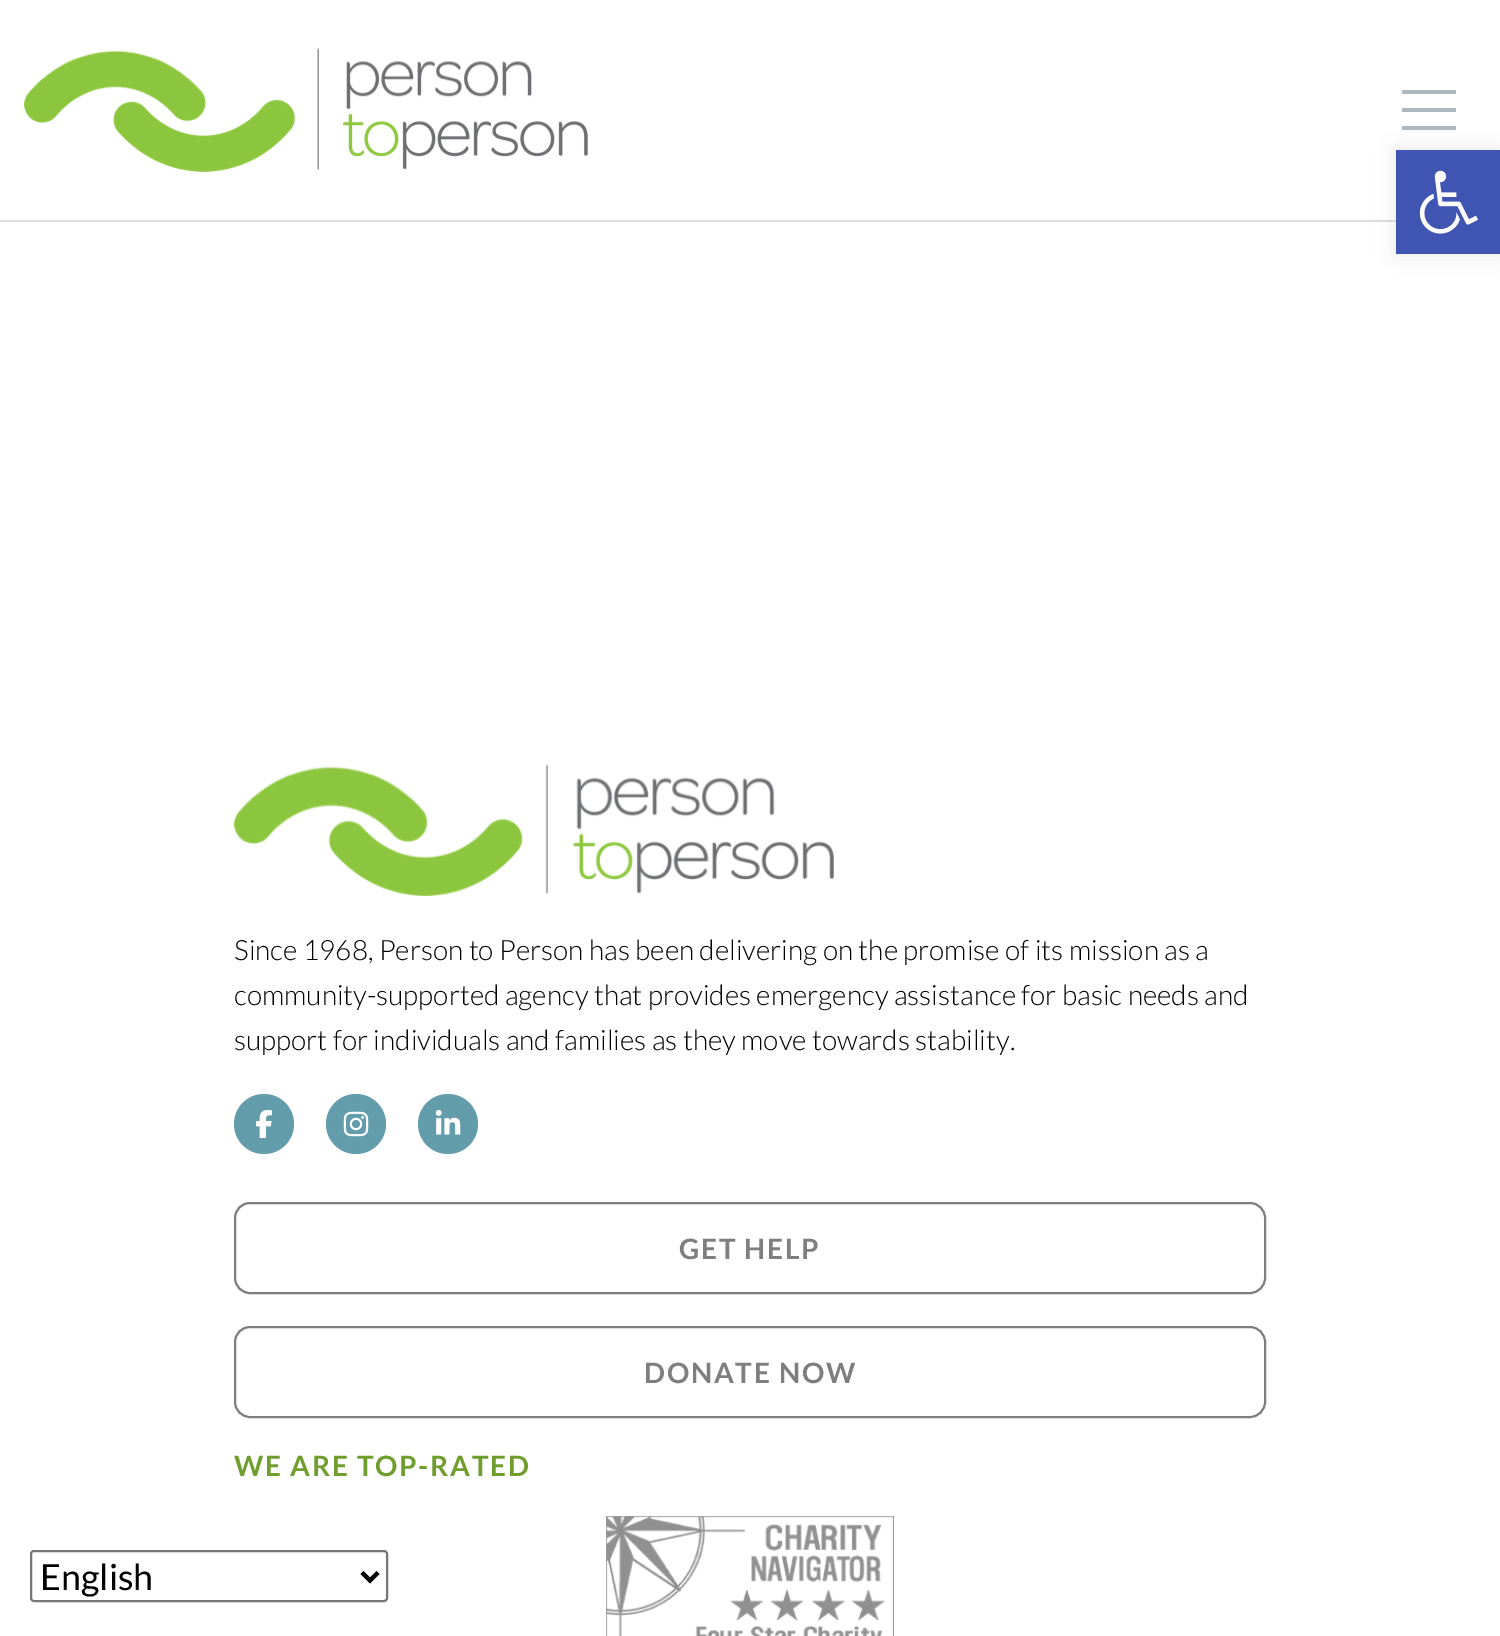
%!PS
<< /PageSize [1500 1636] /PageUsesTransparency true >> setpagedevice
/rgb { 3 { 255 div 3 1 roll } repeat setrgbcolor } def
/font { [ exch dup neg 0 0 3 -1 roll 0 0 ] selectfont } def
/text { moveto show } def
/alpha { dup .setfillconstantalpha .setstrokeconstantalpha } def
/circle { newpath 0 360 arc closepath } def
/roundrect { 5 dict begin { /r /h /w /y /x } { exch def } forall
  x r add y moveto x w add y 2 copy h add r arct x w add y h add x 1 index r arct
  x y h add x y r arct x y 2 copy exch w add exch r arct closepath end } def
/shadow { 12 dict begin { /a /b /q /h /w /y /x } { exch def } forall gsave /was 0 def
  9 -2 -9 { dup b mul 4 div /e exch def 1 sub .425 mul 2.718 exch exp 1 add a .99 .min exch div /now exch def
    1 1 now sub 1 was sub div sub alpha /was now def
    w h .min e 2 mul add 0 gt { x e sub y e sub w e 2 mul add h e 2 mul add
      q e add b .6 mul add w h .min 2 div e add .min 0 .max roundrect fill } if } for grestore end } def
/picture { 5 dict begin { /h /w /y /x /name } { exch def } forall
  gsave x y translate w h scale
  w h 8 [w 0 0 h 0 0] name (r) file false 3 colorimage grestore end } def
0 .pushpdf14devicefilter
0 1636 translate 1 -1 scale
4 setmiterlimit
255 255 255 rgb
0 0 1500 1636 rectfill
221 221 221 rgb
0 220 1396 2 rectfill
(img_01.rgb) 24 48 564 124 picture
173 185 192 rgb
1402 90 54 4 rectfill
1402 108 54 4 rectfill
1402 126 54 4 rectfill
0 0 0 rgb
1396 150 104 104 0 10 0.1 shadow
64 84 178 rgb
1396 150 104 104 rectfill
(img_02.rgb) 1419 170 59 64 picture
(img_03.rgb) 234 764 600 132 picture
99 156 171 rgb
264 1124 30 circle fill
(img_04.rgb) 256 1110 16 28 picture
356 1124 30 circle fill
(img_05.rgb) 343 1111 26 26 picture
448 1124 30 circle fill
(img_06.rgb) 435 1110 26 25 picture
126 126 126 rgb
2 setlinewidth
235 1203 1030 90 15 roundrect stroke
235 1327 1030 90 15 roundrect stroke
(img_07.rgb) 606 1516 288 120 picture
118 118 118 rgb
31 1551 356 50 3 roundrect stroke
0 0 0 rgb
4 setlinewidth
362 1572.5 moveto 8 8 rlineto 8 -8 rlineto stroke
/Lato-Light 28 font
(Since 1968, Person to Person has been delivering on the promise of its mission as a) 234 960 text
(community-supported agency that provides emergency assistance for basic needs and) 234 1005 text
(support for individuals and families as they move towards stability.) 234 1050 text
/Lato-Bold 28 font
126 126 126 rgb
679 1259 moveto 1.75 0 (GET HELP) ashow
644 1383 moveto 1.75 0 (DONATE NOW) ashow
111 158 46 rgb
234 1476 moveto 1.75 0 (WE ARE TOP-RATED) ashow
/Lato-Regular 36 font
0 0 0 rgb
(English) 40 1590 text
.poppdf14devicefilter showpage
